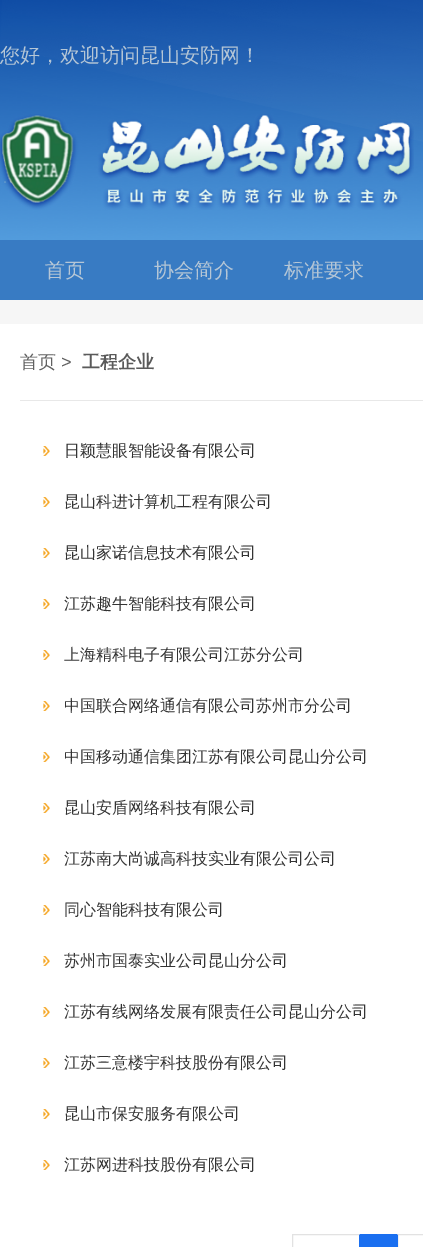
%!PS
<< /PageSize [423 1247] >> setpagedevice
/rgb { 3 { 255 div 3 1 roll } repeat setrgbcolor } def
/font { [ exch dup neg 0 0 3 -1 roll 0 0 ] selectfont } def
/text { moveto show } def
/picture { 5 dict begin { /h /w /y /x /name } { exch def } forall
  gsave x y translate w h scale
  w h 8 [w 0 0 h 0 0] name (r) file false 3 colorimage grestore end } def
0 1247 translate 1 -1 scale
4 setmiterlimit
246 246 246 rgb
0 0 423 1247 rectfill
(img_01.rgb) 0 0 423 240 picture
(img_02.rgb) 0 114 414 96 picture
56 123 195 rgb
0 240 423 60 rectfill
255 255 255 rgb
0 324 423 923 rectfill
232 232 232 rgb
20 400 403 1 rectfill
(img_03.rgb) 43 446 7 10 picture
(img_03.rgb) 43 497 7 10 picture
(img_03.rgb) 43 548 7 10 picture
(img_03.rgb) 43 599 7 10 picture
(img_03.rgb) 43 650 7 10 picture
(img_03.rgb) 43 701 7 10 picture
(img_03.rgb) 43 752 7 10 picture
(img_03.rgb) 43 803 7 10 picture
(img_03.rgb) 43 854 7 10 picture
(img_03.rgb) 43 905 7 10 picture
(img_03.rgb) 43 956 7 10 picture
(img_03.rgb) 43 1007 7 10 picture
(img_03.rgb) 43 1058 7 10 picture
(img_03.rgb) 43 1109 7 10 picture
(img_03.rgb) 43 1160 7 10 picture
226 226 226 rgb
292.5 1234.5 67 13 rectstroke
397.5 1234.5 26 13 rectstroke
359.5 1234.5 38 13 rectstroke
26 111 240 rgb
361 1234 moveto 35 0 rlineto 1 0 2 1 2 2 rcurveto 0 11 rlineto -39 0 rlineto 0 -11 rlineto 0 -1 1 -2 2 -2 rcurveto closepath fill
/WenQuanYiZenHei-Medium 20 font
181 198 214 rgb
(您好，欢迎访问昆山安防网！) 0 62 text
(首页) 45 277 text
(协会简介) 154 277 text
(标准要求) 284 277 text
/WenQuanYiZenHei-Medium 18 font
97 97 97 rgb
(首页) 20 368 text
/LiberationSans-Regular 18 font
(>) 61 368 text
/WenQuanYiZenHei-Bold 18 font
90 90 90 rgb
(工程企业) 82 368 text
/WenQuanYiZenHei-Medium 16 font
51 51 51 rgb
(日颖慧眼智能设备有限公司) 64 456 text
(昆山科进计算机工程有限公司) 64 507 text
(昆山家诺信息技术有限公司) 64 558 text
(江苏趣牛智能科技有限公司) 64 609 text
(上海精科电子有限公司江苏分公司) 64 660 text
(中国联合网络通信有限公司苏州市分公司) 64 711 text
(中国移动通信集团江苏有限公司昆山分公司) 64 762 text
(昆山安盾网络科技有限公司) 64 813 text
(江苏南大尚诚高科技实业有限公司公司) 64 864 text
(同心智能科技有限公司) 64 915 text
(苏州市国泰实业公司昆山分公司) 64 966 text
(江苏有线网络发展有限责任公司昆山分公司) 64 1017 text
(江苏三意楼宇科技股份有限公司) 64 1068 text
(昆山市保安服务有限公司) 64 1119 text
(江苏网进科技股份有限公司) 64 1170 text
showpage
